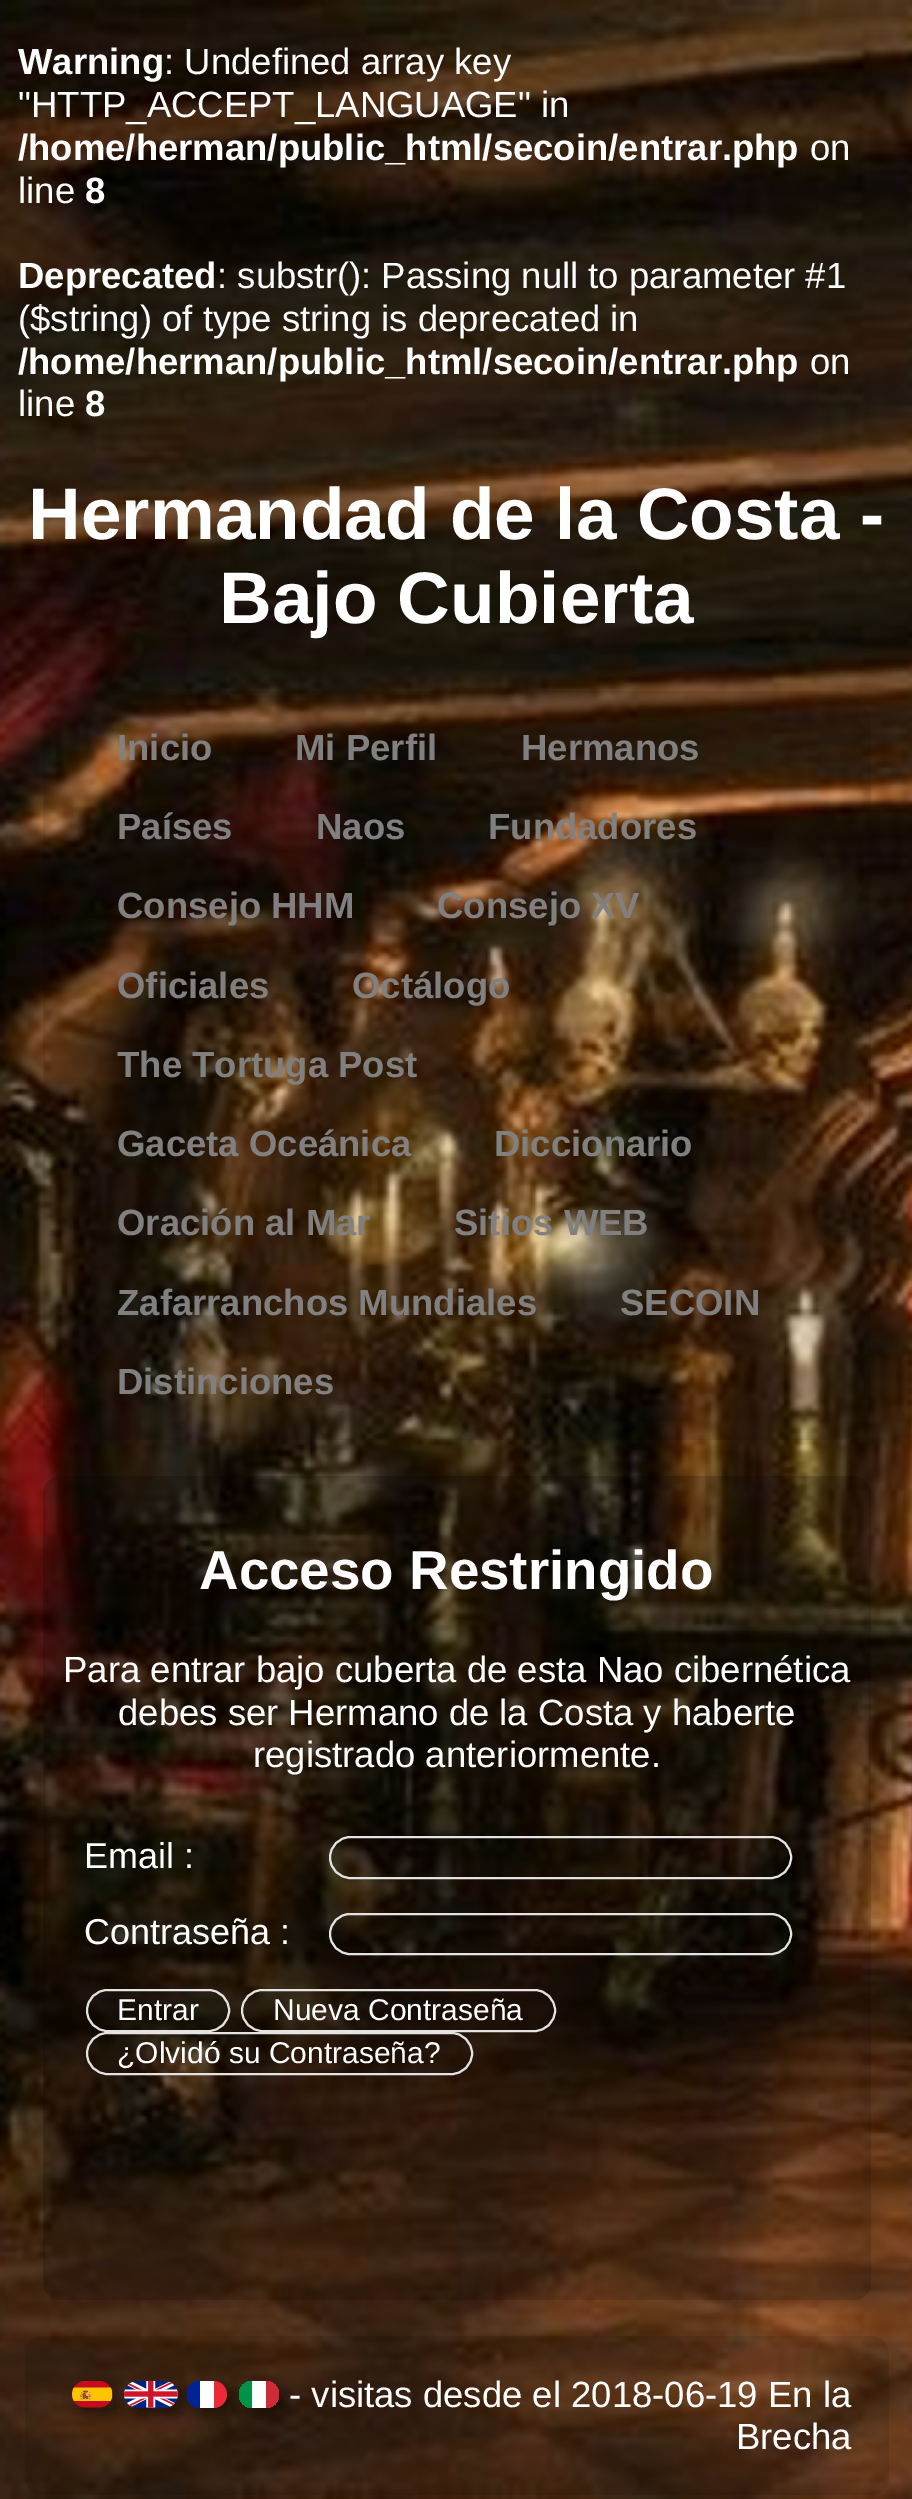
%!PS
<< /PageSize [912 2499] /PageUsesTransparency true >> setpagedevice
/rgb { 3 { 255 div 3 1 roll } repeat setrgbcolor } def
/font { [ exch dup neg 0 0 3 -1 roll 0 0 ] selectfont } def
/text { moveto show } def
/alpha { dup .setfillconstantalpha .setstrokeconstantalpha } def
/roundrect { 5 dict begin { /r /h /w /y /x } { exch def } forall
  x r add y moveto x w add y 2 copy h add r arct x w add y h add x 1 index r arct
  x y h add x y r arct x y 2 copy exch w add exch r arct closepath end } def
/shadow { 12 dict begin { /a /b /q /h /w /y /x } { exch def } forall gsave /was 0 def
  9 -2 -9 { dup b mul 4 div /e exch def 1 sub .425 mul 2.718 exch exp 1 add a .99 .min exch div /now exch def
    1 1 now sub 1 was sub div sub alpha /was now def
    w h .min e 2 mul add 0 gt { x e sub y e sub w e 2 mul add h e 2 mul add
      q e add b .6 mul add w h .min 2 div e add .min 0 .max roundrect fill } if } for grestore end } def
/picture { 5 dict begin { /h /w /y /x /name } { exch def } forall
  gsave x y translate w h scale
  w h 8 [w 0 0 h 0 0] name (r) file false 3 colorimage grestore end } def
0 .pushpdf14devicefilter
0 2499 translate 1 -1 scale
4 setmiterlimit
255 255 255 rgb
0 0 912 2499 rectfill
(img_01.rgb) 0 0 912 2499 picture
0.1 alpha
0 0 0 rgb
43 691 828 749 36 roundrect fill
gsave
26 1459 moveto 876 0 rlineto 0 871 rlineto -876 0 rlineto closepath 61 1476 moveto 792 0 rlineto 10 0 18 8 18 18 rcurveto 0 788 rlineto 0 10 -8 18 -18 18 rcurveto -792 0 rlineto -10 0 -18 -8 -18 -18 rcurveto 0 -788 rlineto 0 -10 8 -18 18 -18 rcurveto closepath eoclip newpath
1 alpha
50 1483 828 823 18 7.5 0.1 shadow
grestore
0.2 alpha
43 1476 828 824 18 roundrect fill
0.1 alpha
330 1837 461 41 20.5 roundrect fill
1 alpha
227 227 227 rgb
2 setlinewidth
330 1837 461 41 20.5 roundrect stroke
0.1 alpha
0 0 0 rgb
330 1914 461 40 20 roundrect fill
1 alpha
227 227 227 rgb
330 1914 461 40 20 roundrect stroke
0.1 alpha
0 0 0 rgb
87 1990 142 41 20.5 roundrect fill
1 alpha
227 227 227 rgb
87 1990 142 41 20.5 roundrect stroke
0.1 alpha
0 0 0 rgb
242 1990 313 41 20.5 roundrect fill
1 alpha
227 227 227 rgb
242 1990 313 41 20.5 roundrect stroke
0.1 alpha
0 0 0 rgb
87 2033 385 41 20.5 roundrect fill
1 alpha
227 227 227 rgb
87 2033 385 41 20.5 roundrect stroke
0.1 alpha
0 0 0 rgb
25 2336 864 159 18 roundrect fill
1 alpha
79 2387 40 27 13.5 7.5 0.5 shadow
(img_02.rgb) 72 2381 41 27 picture
131 2387 54 27 13.5 7.5 0.5 shadow
(img_03.rgb) 124 2381 54 27 picture
194 2387 40 27 13.5 7.5 0.5 shadow
237 41 57 rgb
187 2381 40 27 13.5 roundrect fill
0 0 0 rgb
245 2387 41 27 13.5 7.5 0.5 shadow
gsave
187 2381 40 27 13.5 roundrect clip newpath
255 255 255 rgb
200.5 2381 moveto 13.5 0 rlineto 0 27 rlineto -13.5 0 rlineto -7.5 0 -13.5 -6 -13.5 -13.5 rcurveto 0 -7.5 6 -13.5 13.5 -13.5 rcurveto closepath fill
0 35 149 rgb
187 2381 13 27 rectfill
grestore
gsave
239 2381 40 27 13.5 roundrect clip newpath
0 146 70 rgb
239 2381 13 27 rectfill
grestore
255 255 255 rgb
252 2381 14 27 rectfill
gsave
239 2381 40 27 13.5 roundrect clip newpath
206 43 55 rgb
266 2381 13 27 rectfill
grestore
/LiberationSans-Bold 36.5 font
(Warning) 18 74 text
/LiberationSans-Regular 36.5 font
(: Undefined array key) 164 74 text
("HTTP_ACCEPT_LANGUAGE" in) 18 117 text
/LiberationSans-Bold 36.5 font
(/home/herman/public_html/secoin/entrar.php) 18 160 text
/LiberationSans-Regular 36.5 font
(on) 810 160 text
(line) 18 203 text
/LiberationSans-Bold 36.5 font
(8) 85 203 text
(Deprecated) 18 288 text
/LiberationSans-Regular 36.5 font
(: substr\(\): Passing null to parameter #1) 217 288 text
(\($string\) of type string is deprecated in) 18 331 text
/LiberationSans-Bold 36.5 font
(/home/herman/public_html/secoin/entrar.php) 18 374 text
/LiberationSans-Regular 36.5 font
(on) 810 374 text
(line) 18 416 text
/LiberationSans-Bold 36.5 font
(8) 85 416 text
/LiberationSans-Bold 73 font
(Hermandad de la Costa -) 28 539 text
(Bajo Cubierta) 219 623 text
/LiberationSans-Bold 36.5 font
128 128 128 rgb
(Inicio) 117 760 text
(Mi Perfil) 295 760 text
(Hermanos) 521 760 text
(Países) 117 839 text
(Naos) 316 839 text
(Fundadores) 488 839 text
(Consejo HHM) 117 918 text
(Consejo XV) 437 918 text
(Oficiales) 117 998 text
(Octálogo) 352 998 text
(The Tortuga Post) 117 1077 text
(Gaceta Oceánica) 117 1156 text
(Diccionario) 494 1156 text
(Oración al Mar) 117 1235 text
(Sitios WEB) 454 1235 text
(Zafarranchos Mundiales) 117 1315 text
(SECOIN) 620 1315 text
(Distinciones) 117 1394 text
/LiberationSans-Bold 54.75 font
255 255 255 rgb
(Acceso Restringido) 199 1589 text
/LiberationSans-Regular 36.5 font
(Para entrar bajo cuberta de esta Nao cibernética) 63 1682 text
(debes ser Hermano de la Costa y haberte) 118 1725 text
(registrado anteriormente.) 253 1767 text
/LiberationSans-Regular 36 font
(Email :) 84 1868 text
(Contraseña :) 84 1944 text
/LiberationSans-Regular 30 font
(Entrar) 117 2020 text
(Nueva Contraseña) 273 2020 text
(¿Olvidó su Contraseña?) 117 2063 text
/LiberationSans-Regular 36.5 font
(- visitas desde el 2018-06-19 En la) 289 2407 text
(Brecha) 736 2449 text
.poppdf14devicefilter showpage
